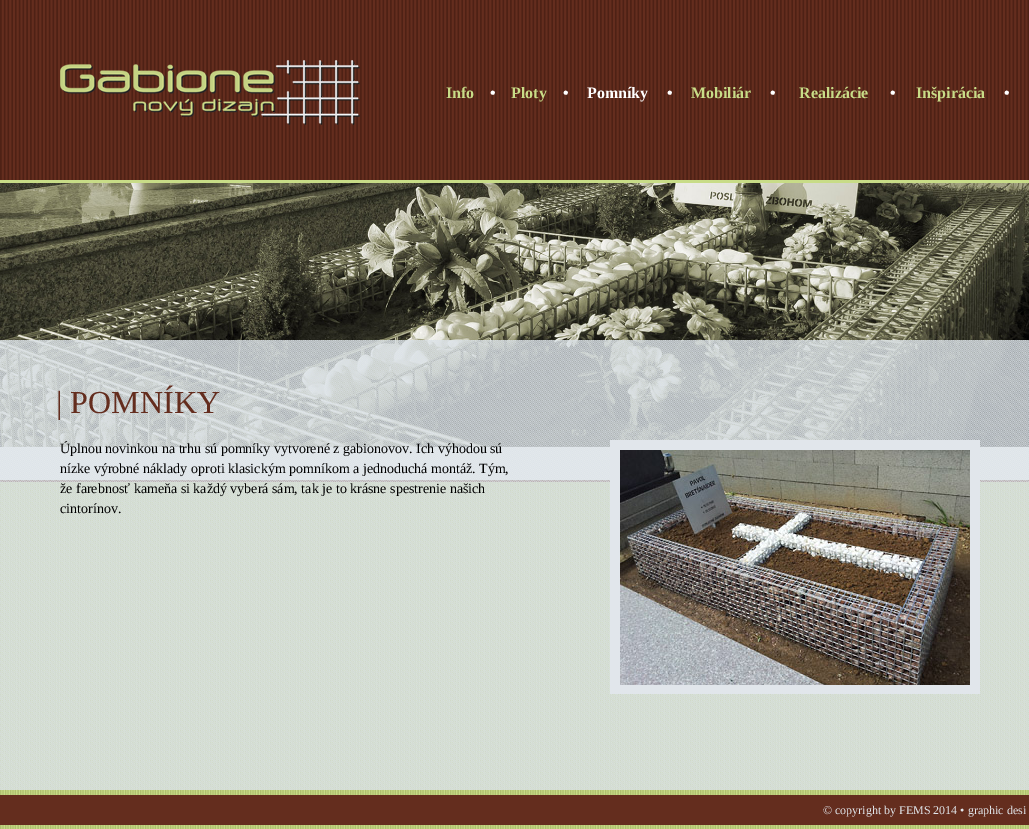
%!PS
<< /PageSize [1029 829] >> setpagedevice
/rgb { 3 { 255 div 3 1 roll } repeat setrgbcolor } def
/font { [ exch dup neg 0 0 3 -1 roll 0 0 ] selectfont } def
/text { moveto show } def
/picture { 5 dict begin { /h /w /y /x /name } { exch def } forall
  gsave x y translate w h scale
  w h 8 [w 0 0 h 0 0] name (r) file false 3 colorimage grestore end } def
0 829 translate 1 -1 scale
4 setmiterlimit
255 255 255 rgb
0 0 1029 829 rectfill
100 45 30 rgb
1 0 1027 180 rectfill
(img_01.rgb) 0 0 1029 180 picture
(img_05.rgb) 0 183 1029 264 picture
200 220 135 rgb
0 480 1029 349 rectfill
(img_06.rgb) 0 480 1029 349 picture
(img_02.rgb) 0 340 1029 450 picture
(img_03.rgb) 60 60 300 65 picture
225 230 235 rgb
610 440 370 254 rectfill
(img_04.rgb) 620 450 350 235 picture
100 45 30 rgb
0 795 1029 30 rectfill
200 220 135 rgb
0 180 1029 3 rectfill
/LiberationSerif-Bold 16 font
(Info) 446 98 text
255 255 255 rgb
(•) 490 98 text
200 220 135 rgb
(Ploty) 511 98 text
255 255 255 rgb
(•) 563 98 text
(Pomníky) 587 98 text
(•) 667 98 text
200 220 135 rgb
(Mobiliár) 691 98 text
255 255 255 rgb
(•) 770 98 text
200 220 135 rgb
(Realizácie) 799 98 text
255 255 255 rgb
(•) 890 98 text
200 220 135 rgb
(Inšpirácia) 916 98 text
255 255 255 rgb
(•) 1004 98 text
/LiberationSerif-Regular 32 font
100 45 30 rgb
(| POMNÍKY) 56 413 text
/LiberationSerif-Regular 14 font
0 0 0 rgb
(Úplnou novinkou na trhu sú pomníky vytvorené z gabionovov. Ich výhodou sú) 60 453 text
(nízke výrobné náklady oproti klasickým pomníkom a jednoduchá montáž. Tým,) 60 473 text
(že farebnosť kameňa si každý vyberá sám, tak je to krásne spestrenie našich) 60 493 text
(cintorínov.) 60 513 text
/LiberationSerif-Regular 12 font
225 230 235 rgb
(© copyright by FEMS 2014 • graphic desi) 823 814 text
showpage
